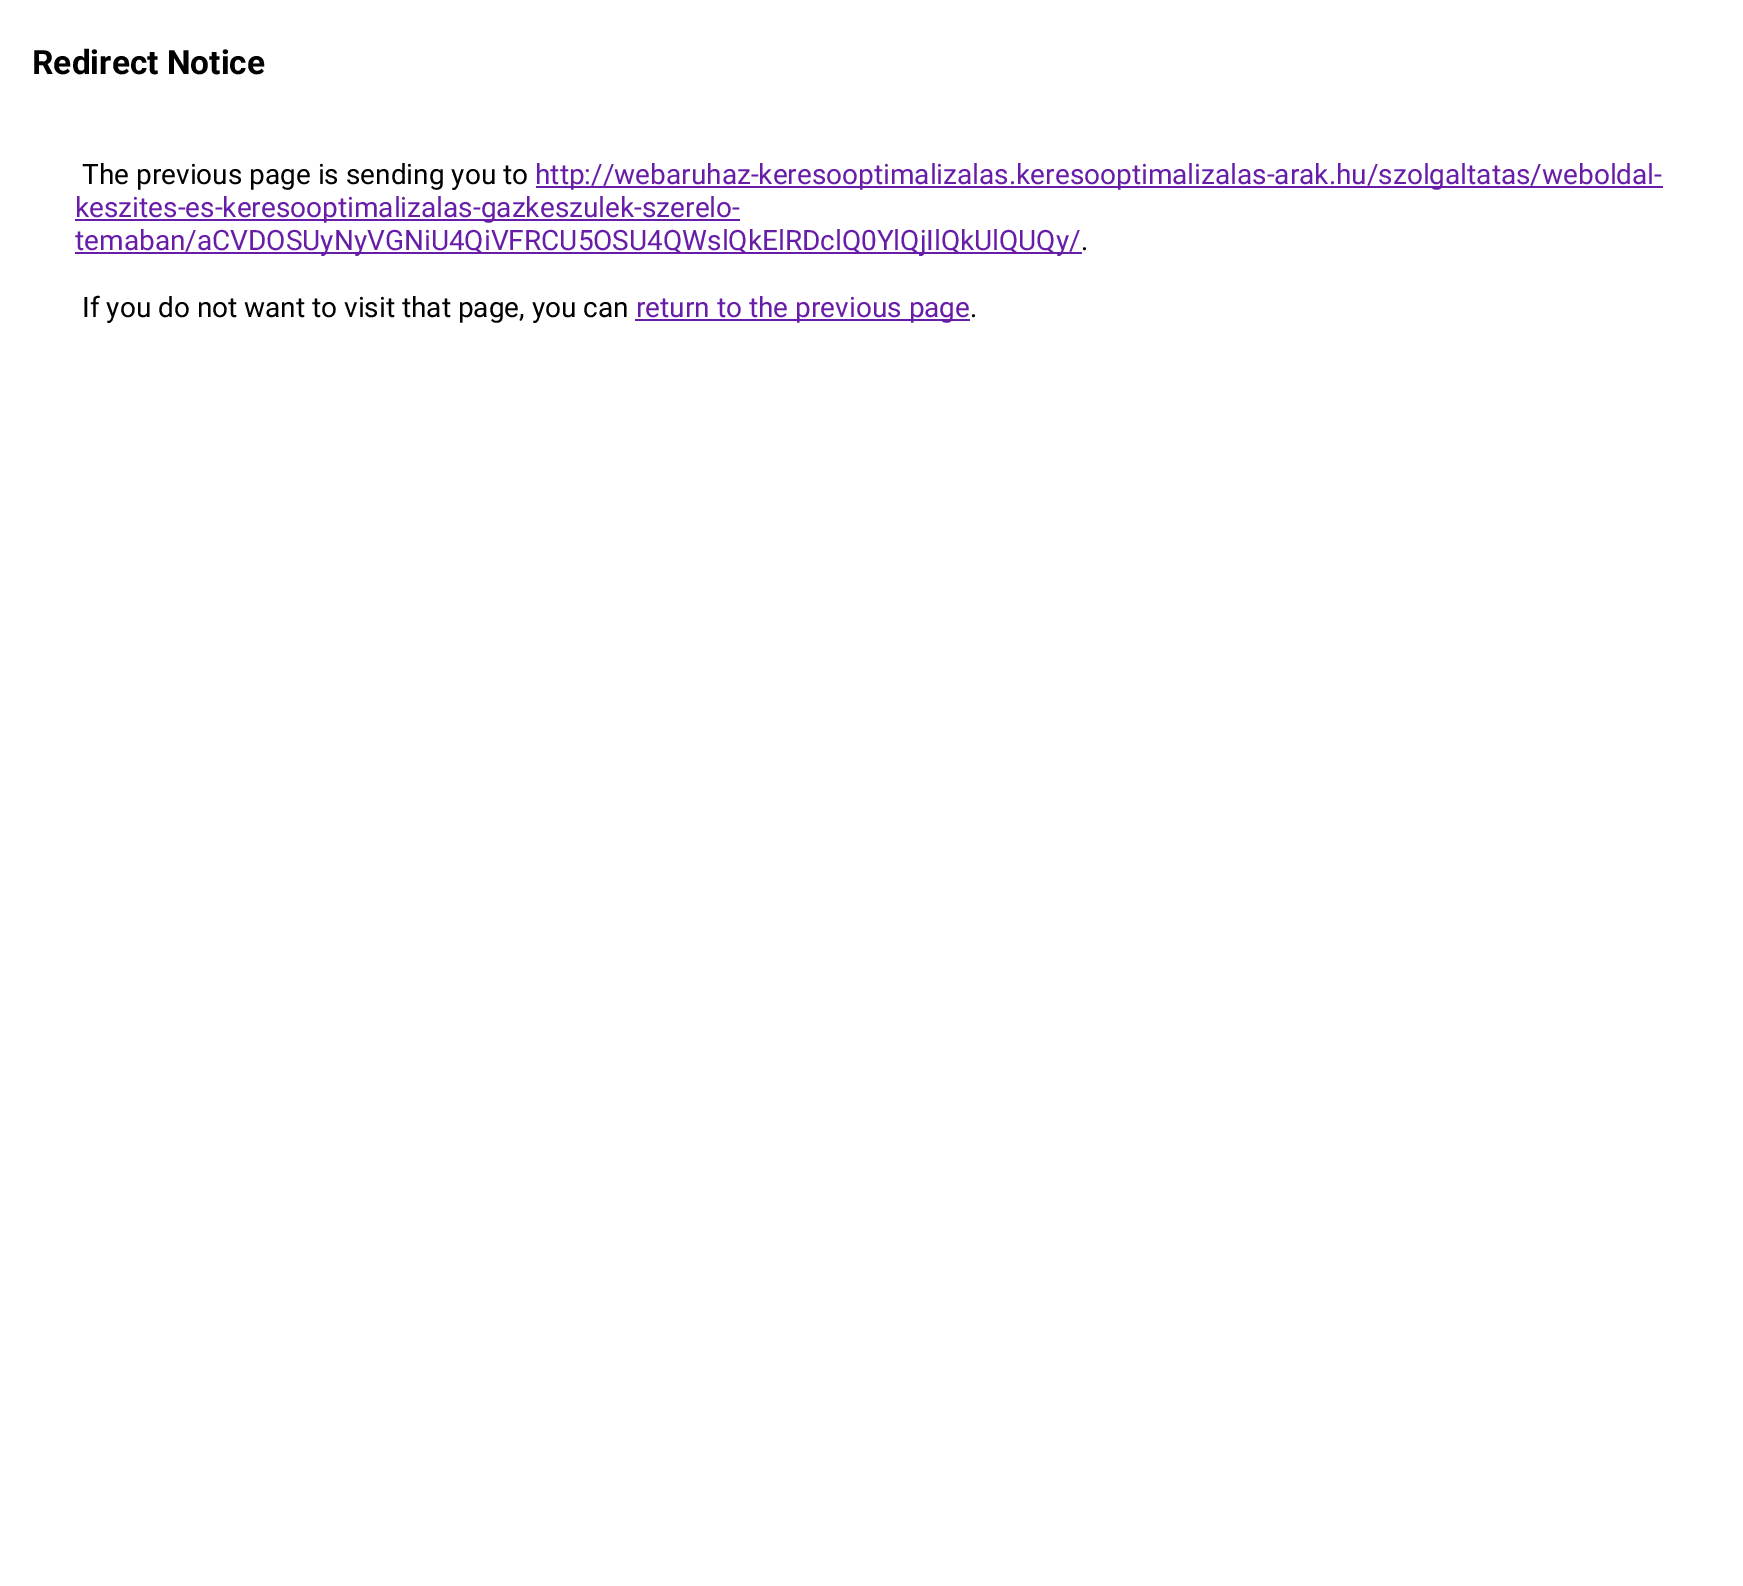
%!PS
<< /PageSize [1743 1586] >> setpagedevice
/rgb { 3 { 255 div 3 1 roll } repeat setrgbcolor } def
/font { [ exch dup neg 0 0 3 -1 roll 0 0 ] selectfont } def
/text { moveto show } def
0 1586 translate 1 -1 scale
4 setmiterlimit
255 255 255 rgb
0 0 1743 1586 rectfill
104 29 168 rgb
536 186 1127 2 rectfill
75 219 665 2 rectfill
75 252 1007 2 rectfill
635 319 335 2 rectfill
/Roboto-Bold 33.5 font
0 0 0 rgb
(Redirect Notice) 32 74 text
/Roboto-Regular 28 font
(The previous page is sending you to) 82 184 text
104 29 168 rgb
(http://webaruhaz-keresooptimalizalas.keresooptimalizalas-arak.hu/szolgaltatas/weboldal-) 535 184 text
(keszites-es-keresooptimalizalas-gazkeszulek-szerelo-) 75 217 text
(temaban/aCVDOSUyNyVGNiU4QiVFRCU5OSU4QWslQkElRDclQ0YlQjIlQkUlQUQy/) 75 250 text
0 0 0 rgb
(.) 1081 250 text
(If you do not want to visit that page, you can) 82 317 text
104 29 168 rgb
(return to the previous page) 636 317 text
0 0 0 rgb
(.) 970 317 text
showpage
